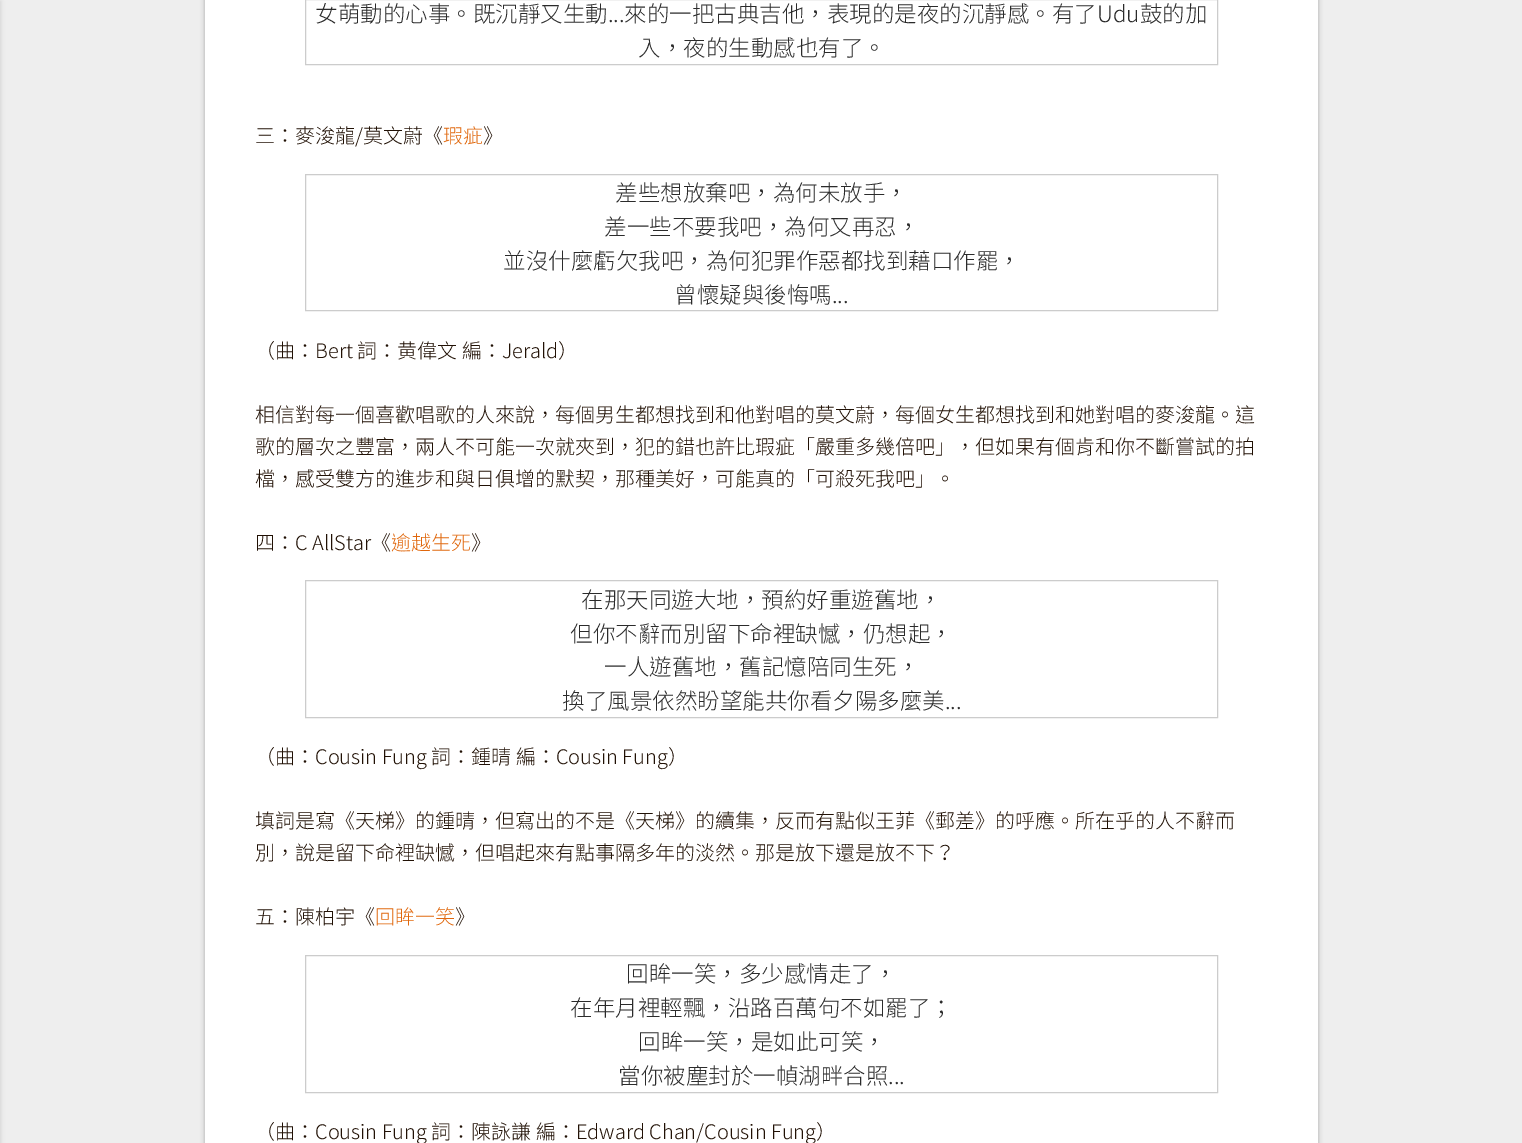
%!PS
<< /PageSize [1522 1143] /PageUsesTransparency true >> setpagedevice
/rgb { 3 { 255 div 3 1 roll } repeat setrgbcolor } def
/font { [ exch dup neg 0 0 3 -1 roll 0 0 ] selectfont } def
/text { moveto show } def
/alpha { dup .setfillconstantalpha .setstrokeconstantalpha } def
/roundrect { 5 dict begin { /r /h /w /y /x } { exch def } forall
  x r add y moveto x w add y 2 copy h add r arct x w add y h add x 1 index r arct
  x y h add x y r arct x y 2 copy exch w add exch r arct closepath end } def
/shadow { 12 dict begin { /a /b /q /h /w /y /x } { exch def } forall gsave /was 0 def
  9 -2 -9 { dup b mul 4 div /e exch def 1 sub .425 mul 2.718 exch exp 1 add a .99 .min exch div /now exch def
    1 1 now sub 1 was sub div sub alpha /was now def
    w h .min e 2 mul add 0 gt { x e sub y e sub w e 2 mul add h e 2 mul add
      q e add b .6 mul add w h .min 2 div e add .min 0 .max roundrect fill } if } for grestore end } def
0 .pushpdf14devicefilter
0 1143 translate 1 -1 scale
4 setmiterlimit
238 238 238 rgb
0 0 1522 1143 rectfill
0 0 0 rgb
-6 1 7 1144 0 2 0.1 shadow
205 -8 1113 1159 0 2.5 0.3 shadow
255 255 255 rgb
205 0 1113 1143 rectfill
204 204 204 rgb
305.5 -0.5 912 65 rectstroke
305.5 174.5 912 136 rectstroke
305.5 580.5 912 137 rectstroke
305.5 955.5 912 137 rectstroke
/NotoSansTC-Light 22.5 font
43 43 43 rgb
(女萌動的心事。既沉靜又生動...來的一把古典吉他，表現的是夜的沉靜感。有了Udu鼓的加) 315 22 text
(入，夜的生動感也有了。) 638 56 text
/NotoSansTC-Light 20 font
33 17 5 rgb
(三：麥浚龍/莫文蔚《) 255 143 text
224 103 12 rgb
(瑕疵) 443 143 text
33 17 5 rgb
(》) 483 143 text
/NotoSansTC-Light 22.5 font
43 43 43 rgb
(差些想放棄吧，為何未放手，) 615 201 text
(差一些不要我吧，為何又再忍，) 604 235 text
(並沒什麼虧欠我吧，為何犯罪作惡都找到藉口作罷，) 503 269 text
(曾懷疑與後悔嗎...) 674 303 text
/NotoSansTC-Light 20 font
33 17 5 rgb
(（曲：Bert 詞：黄偉文 編：Jerald）) 255 358 text
(相信對每一個喜歡唱歌的人來說，每個男生都想找到和他對唱的莫文蔚，每個女生都想找到和她對唱的麥浚龍。這) 255 422 text
(歌的層次之豐富，兩人不可能一次就夾到，犯的錯也許比瑕疵「嚴重多幾倍吧」，但如果有個肯和你不斷嘗試的拍) 255 454 text
(檔，感受雙方的進步和與日俱增的默契，那種美好，可能真的「可殺死我吧」。) 255 486 text
(四：C AllStar《) 255 550 text
224 103 12 rgb
(逾越生死) 391 550 text
33 17 5 rgb
(》) 471 550 text
/NotoSansTC-Light 22.5 font
43 43 43 rgb
(在那天同遊大地，預約好重遊舊地，) 581 608 text
(但你不辭而別留下命裡缺憾，仍想起，) 570 642 text
(一人遊舊地，舊記憶陪同生死，) 604 675 text
(換了風景依然盼望能共你看夕陽多麼美...) 562 709 text
/NotoSansTC-Light 20 font
33 17 5 rgb
(（曲：Cousin Fung 詞：鍾晴 編：Cousin Fung）) 255 764 text
(填詞是寫《天梯》的鍾晴，但寫出的不是《天梯》的續集，反而有點似王菲《郵差》的呼應。所在乎的人不辭而) 255 828 text
(別，說是留下命裡缺憾，但唱起來有點事隔多年的淡然。那是放下還是放不下？) 255 860 text
(五：陳柏宇《) 255 924 text
224 103 12 rgb
(回眸一笑) 375 924 text
33 17 5 rgb
(》) 455 924 text
/NotoSansTC-Light 22.5 font
43 43 43 rgb
(回眸一笑，多少感情走了，) 626 982 text
(在年月裡輕飄，沿路百萬句不如罷了；) 570 1016 text
(回眸一笑，是如此可笑，) 638 1050 text
(當你被塵封於一幀湖畔合照...) 618 1084 text
/NotoSansTC-Light 20 font
33 17 5 rgb
(（曲：Cousin Fung 詞：陳詠謙 編：Edward Chan/Cousin Fung）) 255 1139 text
.poppdf14devicefilter showpage
